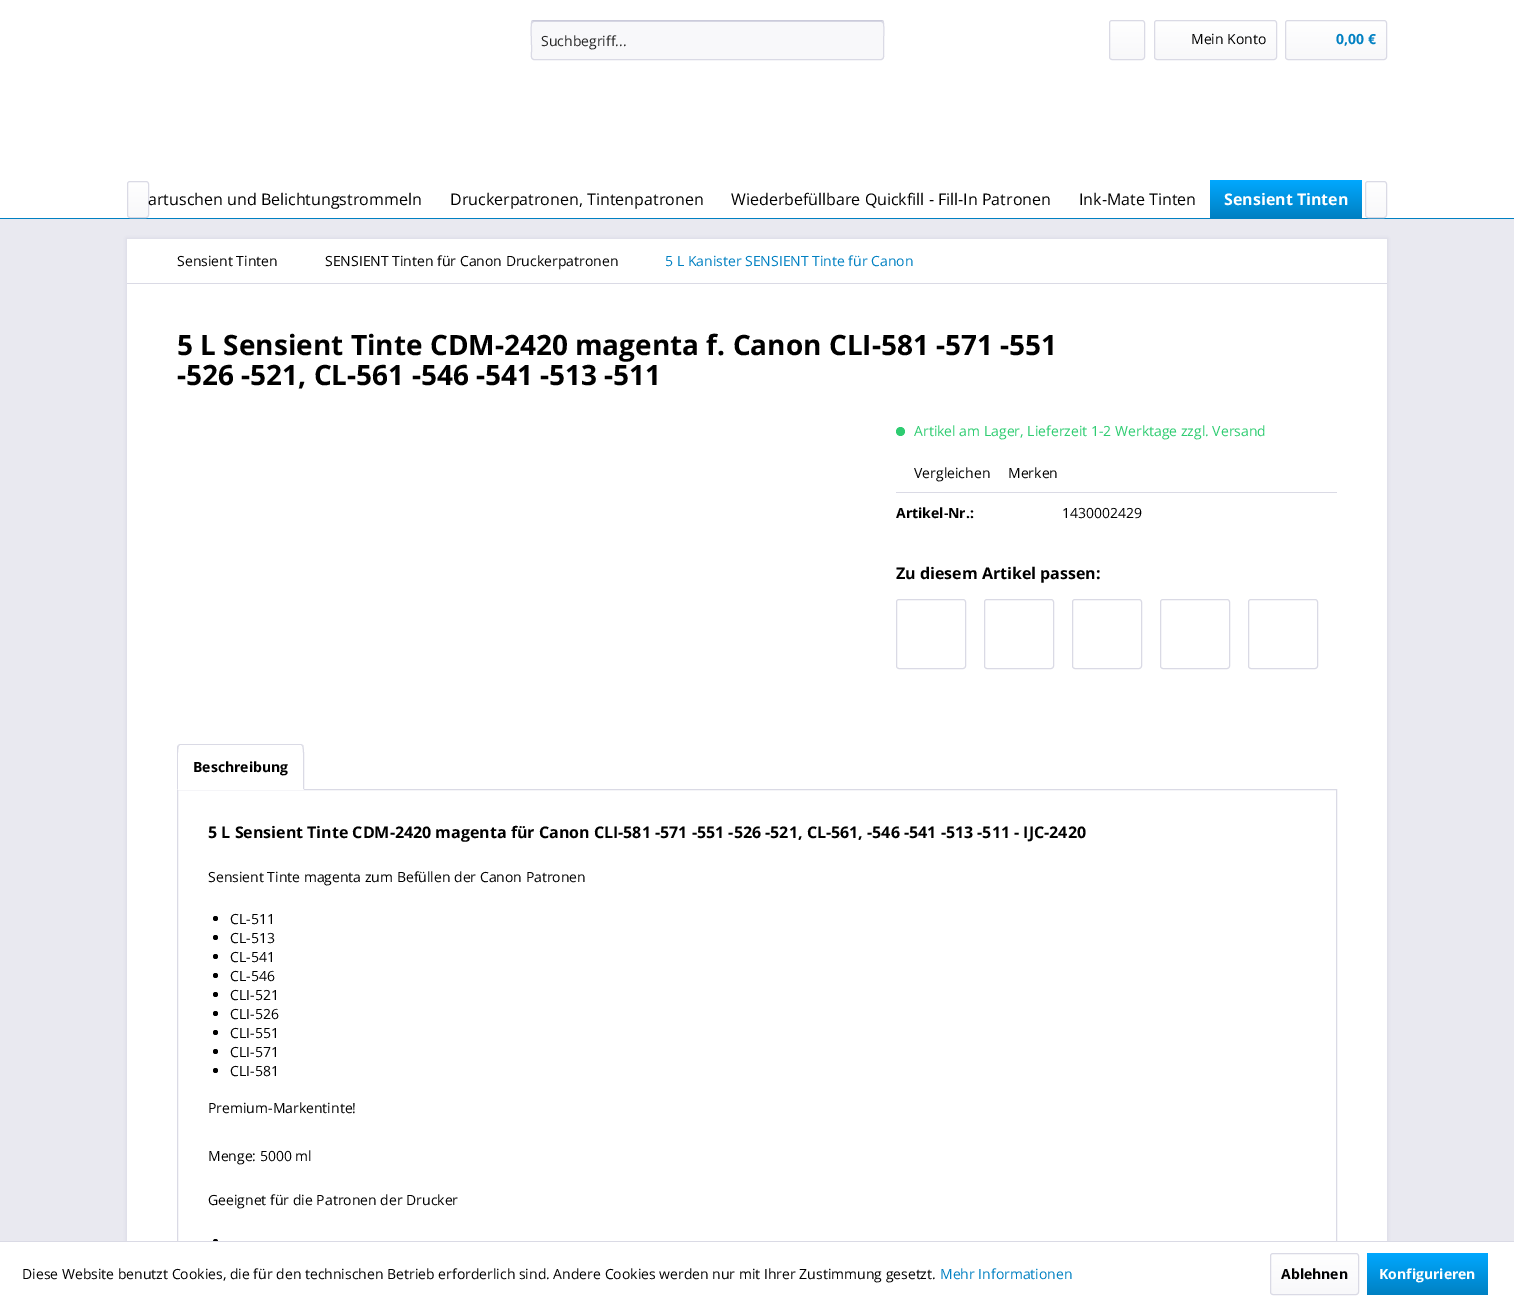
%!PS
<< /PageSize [1514 1305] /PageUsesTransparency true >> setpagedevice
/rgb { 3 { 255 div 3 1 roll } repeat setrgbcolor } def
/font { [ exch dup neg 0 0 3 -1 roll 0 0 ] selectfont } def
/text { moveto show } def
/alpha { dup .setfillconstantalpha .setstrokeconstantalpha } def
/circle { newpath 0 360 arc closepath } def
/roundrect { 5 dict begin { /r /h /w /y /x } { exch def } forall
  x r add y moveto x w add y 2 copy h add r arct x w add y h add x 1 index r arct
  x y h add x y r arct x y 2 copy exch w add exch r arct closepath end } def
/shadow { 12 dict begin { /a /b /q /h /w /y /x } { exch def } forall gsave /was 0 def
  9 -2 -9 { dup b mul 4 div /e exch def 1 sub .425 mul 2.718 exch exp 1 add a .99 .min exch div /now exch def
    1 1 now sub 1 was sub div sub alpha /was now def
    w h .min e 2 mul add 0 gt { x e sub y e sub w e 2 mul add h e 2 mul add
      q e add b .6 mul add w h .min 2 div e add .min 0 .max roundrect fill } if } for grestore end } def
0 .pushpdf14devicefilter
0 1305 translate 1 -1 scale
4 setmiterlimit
233 233 240 rgb
0 0 1514 1305 rectfill
255 255 255 rgb
0 0 1514 218 rectfill
248 248 250 rgb
531 20 353 40 3 roundrect fill
218 218 229 rgb
534 22 moveto 347 0 rlineto 1 0 2 1 2 2 rcurveto 0 -1 0 -3 -2 -3 rcurveto -347 0 rlineto -2 0 -2 2 -2 3 rcurveto 0 -1 1 -2 2 -2 rcurveto closepath fill
203 203 219 rgb
532 21 moveto 2 -0.5 rlineto 347 0 rlineto 2 0.5 rlineto stroke
218 218 229 rgb
883 21 moveto 1.5 2 0.5 21 0.5 24.5 rcurveto 0 6 rlineto 0 1.5 1.5 8 -2.5 8 rcurveto -347 0 rlineto -4 0 -2.5 -6.5 -2.5 -8 rcurveto 0 -6 rlineto 0 -3.5 -1 -22.5 0.5 -24.5 rcurveto stroke
gsave 1110 21 34 38 2 roundrect clip newpath
<< /ShadingType 2 /ColorSpace /DeviceRGB /Coords [1127 21 1127 59] /Extend [true true] /Function << /FunctionType 2 /Domain [0 1] /C0 [1 1 1] /C1 [0.973 0.973 0.98] /N 1 >> >> shfill grestore
1109.5 20.5 35 39 2.5 roundrect stroke
gsave 1155 21 121 38 2 roundrect clip newpath
<< /ShadingType 2 /ColorSpace /DeviceRGB /Coords [1216 21 1216 59] /Extend [true true] /Function << /FunctionType 2 /Domain [0 1] /C0 [1 1 1] /C1 [0.973 0.973 0.98] /N 1 >> >> shfill grestore
1154.5 20.5 122 39 2.5 roundrect stroke
gsave 1286 21 100 38 2 roundrect clip newpath
<< /ShadingType 2 /ColorSpace /DeviceRGB /Coords [1336 21 1336 59] /Extend [true true] /Function << /FunctionType 2 /Domain [0 1] /C0 [1 1 1] /C1 [0.973 0.973 0.98] /N 1 >> >> shfill grestore
1285.5 20.5 101 39 2.5 roundrect stroke
0 128 194 rgb
0 218 1514 1 rectfill
gsave 128 182 20 35 2 roundrect clip newpath
<< /ShadingType 2 /ColorSpace /DeviceRGB /Coords [138 182 138 217] /Extend [true true] /Function << /FunctionType 2 /Domain [0 1] /C0 [1 1 1] /C1 [0.973 0.973 0.98] /N 1 >> >> shfill grestore
218 218 229 rgb
127.5 181.5 21 36 2.5 roundrect stroke
gsave 1213 180 moveto 146 0 rlineto 1.5 0 3 1.5 3 3 rcurveto 0 35 rlineto -152 0 rlineto 0 -35 rlineto 0 -1.5 1.5 -3 3 -3 rcurveto closepath clip newpath
<< /ShadingType 2 /ColorSpace /DeviceRGB /Coords [1286 180 1286 218] /Extend [true true] /Function << /FunctionType 2 /Domain [0 1] /C0 [0 0.659 1] /C1 [0 0.502 0.761] /N 1 >> >> shfill grestore
gsave 1366 182 20 35 2 roundrect clip newpath
<< /ShadingType 2 /ColorSpace /DeviceRGB /Coords [1376 182 1376 217] /Extend [true true] /Function << /FunctionType 2 /Domain [0 1] /C0 [1 1 1] /C1 [0.973 0.973 0.98] /N 1 >> >> shfill grestore
1365.5 181.5 21 36 2.5 roundrect stroke
126 238 1262 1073 0 2 1 shadow
255 255 255 rgb
127 239 1260 1002 rectfill
218 218 229 rgb
127 283 1260 1 rectfill
46 204 113 rgb
900.5 431.5 4.5 circle fill
218 218 229 rgb
896 492 441 1 rectfill
896.5 599.5 69 69 2.5 roundrect stroke
984.5 599.5 69 69 2.5 roundrect stroke
1072.5 599.5 69 69 2.5 roundrect stroke
1160.5 599.5 69 69 2.5 roundrect stroke
1248.5 599.5 69 69 2.5 roundrect stroke
177.5 789.5 1159 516 rectstroke
255 255 255 rgb
180 744 moveto 121 0 rlineto 1.5 0 3 1.5 3 3 rcurveto 0 43 rlineto -127 0 rlineto 0 -43 rlineto 0 -1.5 1.5 -3 3 -3 rcurveto closepath fill
218 218 229 rgb
180 744 moveto -2 1 rlineto 1 1 rlineto 1 -1 rlineto 121 0 rlineto 1 1 rlineto 1 -1 rlineto -2 -1 rlineto closepath fill
304 790 moveto 0 -5 1 -43 -1 -45 rcurveto -1 1 rlineto 2 1 1 38 1 43 rcurveto closepath fill
255 255 255 rgb
304 790 moveto -1 -1 rlineto -125 0 rlineto -1 1 rlineto closepath fill
218 218 229 rgb
177 790 moveto 1 -1 rlineto 0 -5 -1 -42 1 -43 rcurveto -1 -1 rlineto -1 2 rlineto closepath fill
0 0 0 rgb
215.5 918.5 2.5 circle fill
215.5 937.5 2.5 circle fill
215.5 956.5 2.5 circle fill
215.5 975.5 2.5 circle fill
215.5 994.5 2.5 circle fill
215.5 1013.5 2.5 circle fill
215.5 1032.5 2.5 circle fill
215.5 1051.5 2.5 circle fill
215.5 1070.5 2.5 circle fill
215.5 1241.5 2.5 circle fill
255 255 255 rgb
0 1242 1514 63 rectfill
218 218 229 rgb
0 1241 1514 1 rectfill
gsave 1271 1254 87 40 2 roundrect clip newpath
<< /ShadingType 2 /ColorSpace /DeviceRGB /Coords [1315 1254 1315 1294] /Extend [true true] /Function << /FunctionType 2 /Domain [0 1] /C0 [1 1 1] /C1 [0.973 0.973 0.98] /N 1 >> >> shfill grestore
1270.5 1253.5 88 41 2.5 roundrect stroke
gsave 1367 1253 121 42 3 roundrect clip newpath
<< /ShadingType 2 /ColorSpace /DeviceRGB /Coords [1428 1253 1428 1295] /Extend [true true] /Function << /FunctionType 2 /Domain [0 1] /C0 [0 0.659 1] /C1 [0 0.502 0.761] /N 1 >> >> shfill grestore
/OpenSans-Regular 14 font
38 38 38 rgb
(Suchbegriff...) 541 46 text
0 0 0 rgb
(Mein Konto) 1191 44 text
/OpenSans-Bold 14 font
0 128 194 rgb
(0,00 €) 1336 44 text
/OpenSans-Regular 16 font
0 0 0 rgb
(artuschen und Belichtungstrommeln) 148 205 text
(Druckerpatronen, Tintenpatronen) 450 205 text
(Wiederbefüllbare Quickfill - Fill-In Patronen) 731 205 text
(Ink-Mate Tinten) 1079 205 text
/OpenSans-Bold 16 font
255 255 255 rgb
(Sensient Tinten) 1224 205 text
/OpenSans-Regular 14 font
0 0 0 rgb
(Sensient Tinten) 177 266 text
(SENSIENT Tinten für Canon Druckerpatronen) 325 266 text
0 128 194 rgb
(5 L Kanister SENSIENT Tinte für Canon) 665 266 text
/OpenSans-Bold 28 font
0 0 0 rgb
(5 L Sensient Tinte CDM-2420 magenta f. Canon CLI-581 -571 -551) 177 355 text
(-526 -521, CL-561 -546 -541 -513 -511) 177 385 text
/OpenSans-Regular 14 font
46 204 113 rgb
(Artikel am Lager, Lieferzeit 1-2 Werktage zzgl. Versand) 914 436 text
0 0 0 rgb
(Vergleichen) 914 478 text
(Merken) 1008 478 text
/OpenSans-Bold 14 font
(Artikel-Nr.:) 896 518 text
/OpenSans-Regular 14 font
(1430002429) 1062 518 text
/OpenSans-Bold 16 font
(Zu diesem Artikel passen:) 896 579 text
/OpenSans-Bold 14 font
(Beschreibung) 193 772 text
/OpenSans-Bold 16 font
(5 L Sensient Tinte CDM-2420 magenta für Canon CLI-581 -571 -551 -526 -521, CL-561, -546 -541 -513 -511 - IJC-2420) 208 838 text
/OpenSans-Regular 14 font
(Sensient Tinte magenta zum Befüllen der Canon Patronen) 208 882 text
(CL-511) 230 924 text
(CL-513) 230 943 text
(CL-541) 230 962 text
(CL-546) 230 981 text
(CLI-521) 230 1000 text
(CLI-526) 230 1019 text
(CLI-551) 230 1038 text
(CLI-571) 230 1057 text
(CLI-581) 230 1076 text
(Premium-Markentinte!) 208 1113 text
(Menge: 5000 ml) 208 1161 text
(Geeignet für die Patronen der Drucker) 208 1205 text
(Diese Website benutzt Cookies, die für den technischen Betrieb erforderlich sind. Andere Cookies werden nur mit Ihrer Zustimmung gesetzt.) 22 1279 text
0 128 194 rgb
(Mehr Informationen) 940 1279 text
/OpenSans-Bold 14 font
0 0 0 rgb
(Ablehnen) 1281 1279 text
255 255 255 rgb
(Konfigurieren) 1379 1279 text
.poppdf14devicefilter showpage
